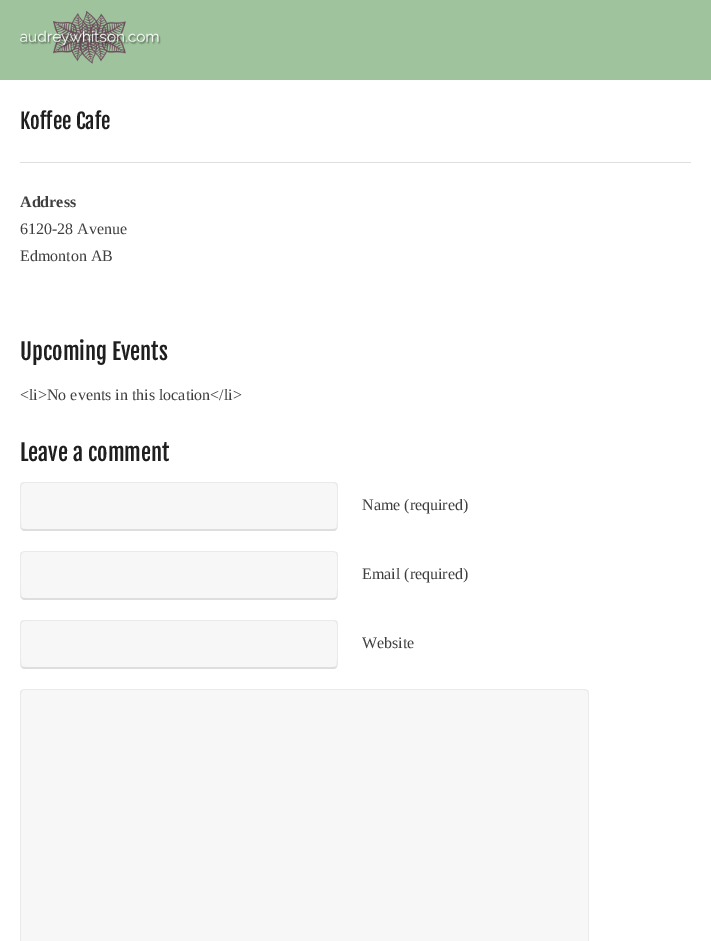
%!PS
<< /PageSize [711 941] /PageUsesTransparency true >> setpagedevice
/rgb { 3 { 255 div 3 1 roll } repeat setrgbcolor } def
/font { [ exch dup neg 0 0 3 -1 roll 0 0 ] selectfont } def
/text { moveto show } def
/alpha { dup .setfillconstantalpha .setstrokeconstantalpha } def
/roundrect { 5 dict begin { /r /h /w /y /x } { exch def } forall
  x r add y moveto x w add y 2 copy h add r arct x w add y h add x 1 index r arct
  x y h add x y r arct x y 2 copy exch w add exch r arct closepath end } def
/picture { 5 dict begin { /h /w /y /x /name } { exch def } forall
  gsave x y translate w h scale
  w h 8 [w 0 0 h 0 0] name (r) file false 3 colorimage grestore end } def
0 .pushpdf14devicefilter
0 941 translate 1 -1 scale
4 setmiterlimit
255 255 255 rgb
0 0 711 941 rectfill
159 196 157 rgb
0 0 711 80 rectfill
(img_01.rgb) 20 10 141 54 picture
223 223 222 rgb
20 162 671 1 rectfill
247 247 247 rgb
20 482 318 49 5 roundrect fill
0.05 alpha
0 0 0 rgb
25 482 moveto -1 0 -3 0 -4 1 rcurveto 1 1 rlineto 1 0 2 -1 3 -1 rcurveto 308 0 rlineto 1 0 2 1 3 1 rcurveto 1 -1 rlineto -1 -1 -3 -1 -4 -1 rcurveto closepath fill
338 526 moveto 0 -39 rlineto 0 -1 0 -3 -1 -4 rcurveto -1 1 rlineto 1 3 rlineto 0 3 1 39 -1 41 rcurveto 1 1 rlineto closepath fill
0.1 alpha
25 531 moveto 310 0 rlineto 2 -2 rlineto -1 -1 rlineto 0 1 -2 1 -3 1 rcurveto -308 0 rlineto -1 0 -3 0 -3 -1 rcurveto -1 1 rlineto 1 1 2 2 4 2 rcurveto closepath fill
0.05 alpha
20 487 moveto 0 39 rlineto 0 1 0 2 1 3 rcurveto 1 -1 rlineto -2 -2 -1 -38 -1 -41 rcurveto 1 -3 rlineto -1 -1 rlineto -1 1 -1 3 -1 4 rcurveto closepath fill
1 alpha
247 247 247 rgb
20 551 318 49 5 roundrect fill
0.05 alpha
0 0 0 rgb
25 551 moveto -1 0 -3 1 -4 1 rcurveto 1 1 rlineto 1 -1 2 -1 3 -1 rcurveto 308 0 rlineto 1 0 2 0 3 1 rcurveto 1 -1 rlineto -1 0 -3 -1 -4 -1 rcurveto closepath fill
338 595 moveto 0 -39 rlineto 0 -2 0 -3 -1 -4 rcurveto -1 1 rlineto 1 3 rlineto 0 3 1 39 -1 41 rcurveto 1 1 rlineto closepath fill
0.1 alpha
25 600 moveto 310 0 rlineto 2 -2 rlineto -1 -1 rlineto 0 1 -2 1 -3 1 rcurveto -308 0 rlineto -1 0 -3 0 -3 -1 rcurveto -1 1 rlineto 1 1 2 2 4 2 rcurveto closepath fill
0.05 alpha
20 556 moveto 0 39 rlineto 0 1 0 2 1 3 rcurveto 1 -1 rlineto -2 -2 -1 -38 -1 -41 rcurveto 1 -3 rlineto -1 -1 rlineto -1 1 -1 2 -1 4 rcurveto closepath fill
1 alpha
247 247 247 rgb
20 620 318 49 5 roundrect fill
0.05 alpha
0 0 0 rgb
25 620 moveto -1 0 -3 0 -4 1 rcurveto 1 1 rlineto 1 0 2 -1 3 -1 rcurveto 308 0 rlineto 1 0 2 1 3 1 rcurveto 1 -1 rlineto -1 -1 -3 -1 -4 -1 rcurveto closepath fill
338 664 moveto 0 -39 rlineto 0 -1 0 -3 -1 -4 rcurveto -1 1 rlineto 1 3 rlineto 0 3 1 39 -1 41 rcurveto 1 1 rlineto closepath fill
0.1 alpha
25 669 moveto 310 0 rlineto 2 -2 rlineto -1 -1 rlineto 0 1 -2 1 -3 1 rcurveto -308 0 rlineto -1 0 -3 0 -3 -1 rcurveto -1 1 rlineto 1 1 2 2 4 2 rcurveto closepath fill
0.05 alpha
20 625 moveto 0 39 rlineto 0 1 0 2 1 3 rcurveto 1 -1 rlineto -2 -2 -1 -38 -1 -41 rcurveto 1 -3 rlineto -1 -1 rlineto -1 1 -1 3 -1 4 rcurveto closepath fill
1 alpha
247 247 247 rgb
20 689 569 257 5 roundrect fill
0.05 alpha
0 0 0 rgb
25 689 moveto -1 0 -3 1 -4 1 rcurveto 1 1 rlineto 1 -1 2 -1 3 -1 rcurveto 559 0 rlineto 1 0 2 0 3 1 rcurveto 1 -1 rlineto -1 0 -2 -1 -4 -1 rcurveto closepath fill
589 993 moveto 0 -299 rlineto 0 -2 -1 -3 -1 -4 rcurveto -1 1 rlineto 1 3 rlineto 0 199 rlineto 0 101 rlineto -1 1 rlineto 1 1 rlineto closepath fill
20 694 moveto 0 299 rlineto 0 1 0 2 1 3 rcurveto 1 -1 rlineto -1 -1 rlineto 0 -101 rlineto 0 -199 rlineto 1 -3 rlineto -1 -1 rlineto -1 1 -1 2 -1 4 rcurveto closepath fill
/FjallaOne-Regular 21 font
1 alpha
31 31 31 rgb
(Koffee Cafe) 20 129 text
/LiberationSerif-Bold 16 font
63 63 63 rgb
(Address) 20 207 text
/LiberationSerif-Regular 16 font
(6120-28 Avenue) 20 234 text
(Edmonton AB) 20 261 text
/FjallaOne-Regular 22.5 font
31 31 31 rgb
(Upcoming Events) 20 360 text
/LiberationSerif-Regular 16 font
63 63 63 rgb
(<li>No events in this location</li>) 20 400 text
/FjallaOne-Regular 22.5 font
31 31 31 rgb
(Leave a comment) 20 461 text
/LiberationSerif-Regular 16 font
63 63 63 rgb
(Name \(required\)) 362 510 text
(Email \(required\)) 362 579 text
(Website) 362 648 text
.poppdf14devicefilter showpage
